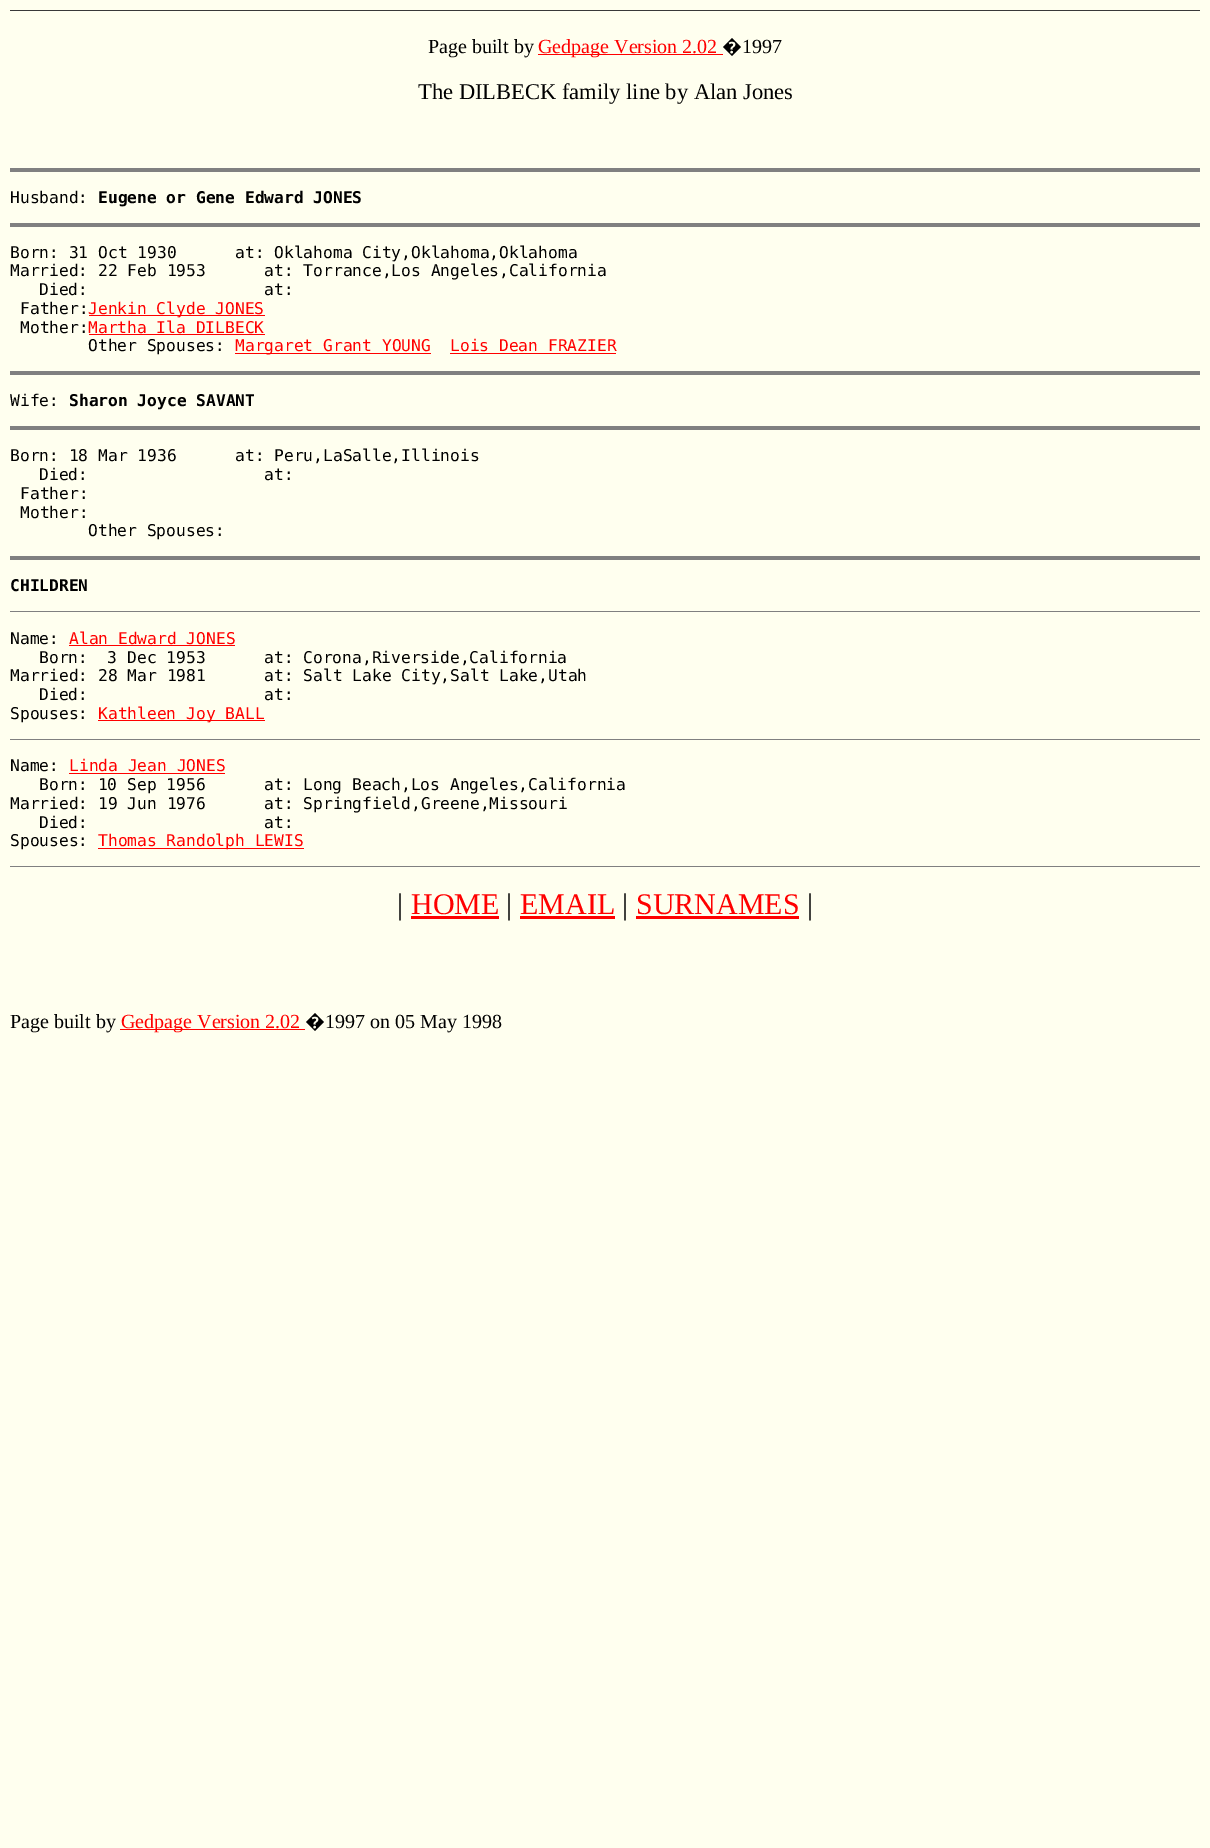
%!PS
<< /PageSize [1210 1848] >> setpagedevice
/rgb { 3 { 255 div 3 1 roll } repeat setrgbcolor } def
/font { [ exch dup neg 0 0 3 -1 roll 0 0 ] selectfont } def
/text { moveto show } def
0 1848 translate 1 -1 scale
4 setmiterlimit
255 255 239 rgb
0 0 1210 1848 rectfill
57 57 57 rgb
10 10 1190 1 rectfill
255 0 0 rgb
538 54 185 1 rectfill
128 128 128 rgb
10 168 1190 4 rectfill
10 223 1190 4 rectfill
255 0 0 rgb
89 315 176 1 rectfill
89 334 176 1 rectfill
235 353 196 1 rectfill
450 353 166 1 rectfill
128 128 128 rgb
10 371 1190 4 rectfill
10 426 1190 4 rectfill
10 556 1190 4 rectfill
10 611 1190 1 rectfill
255 0 0 rgb
69 645 166 1 rectfill
98 720 167 1 rectfill
128 128 128 rgb
10 739 1190 1 rectfill
255 0 0 rgb
69 773 156 1 rectfill
98 848 206 1 rectfill
128 128 128 rgb
10 866 1190 1 rectfill
255 0 0 rgb
411 916 88 3 rectfill
520 916 95 3 rectfill
636 916 163 3 rectfill
120 1029 185 1 rectfill
/LiberationSerif-Regular 20 font
0 0 0 rgb
(Page built by) 428 53 text
255 0 0 rgb
(Gedpage Version 2.02) 538 53 text
/NotoSans-Regular 20 font
0 0 0 rgb
(�) 722 53 text
/LiberationSerif-Regular 20 font
(1997) 742 53 text
/LiberationSerif-Regular 22.5 font
(The DILBECK family line by Alan Jones) 418 99 text
/DejaVuSansMono-Regular 16.25 font
(Husband:) 10 203 text
/DejaVuSansMono-Bold 16.25 font
(Eugene or Gene Edward JONES) 98 203 text
/DejaVuSansMono-Regular 16.25 font
(Born: 31 Oct 1930      at: Oklahoma City,Oklahoma,Oklahoma) 10 258 text
(Married: 22 Feb 1953      at: Torrance,Los Angeles,California) 10 276 text
(Died:                  at:) 39 295 text
(Father:) 20 314 text
255 0 0 rgb
(Jenkin Clyde JONES) 88 314 text
0 0 0 rgb
(Mother:) 20 333 text
255 0 0 rgb
(Martha Ila DILBECK) 88 333 text
0 0 0 rgb
(Other Spouses:) 88 351 text
255 0 0 rgb
(Margaret Grant YOUNG) 235 351 text
(Lois Dean FRAZIER) 450 351 text
0 0 0 rgb
(Wife:) 10 406 text
/DejaVuSansMono-Bold 16.25 font
(Sharon Joyce SAVANT) 69 406 text
/DejaVuSansMono-Regular 16.25 font
(Born: 18 Mar 1936      at: Peru,LaSalle,Illinois) 10 461 text
(Died:                  at:) 39 480 text
(Father:) 20 499 text
(Mother:) 20 518 text
(Other Spouses:) 88 536 text
/DejaVuSansMono-Bold 16.25 font
(CHILDREN) 10 591 text
/DejaVuSansMono-Regular 16.25 font
(Name:) 10 644 text
255 0 0 rgb
(Alan Edward JONES) 69 644 text
0 0 0 rgb
(Born:  3 Dec 1953      at: Corona,Riverside,California) 39 663 text
(Married: 28 Mar 1981      at: Salt Lake City,Salt Lake,Utah) 10 681 text
(Died:                  at:) 39 700 text
(Spouses:) 10 719 text
255 0 0 rgb
(Kathleen Joy BALL) 98 719 text
0 0 0 rgb
(Name:) 10 771 text
255 0 0 rgb
(Linda Jean JONES) 69 771 text
0 0 0 rgb
(Born: 10 Sep 1956      at: Long Beach,Los Angeles,California) 39 790 text
(Married: 19 Jun 1976      at: Springfield,Greene,Missouri) 10 809 text
(Died:                  at:) 39 828 text
(Spouses:) 10 846 text
255 0 0 rgb
(Thomas Randolph LEWIS) 98 846 text
/LiberationSerif-Regular 30 font
0 0 0 rgb
(|) 397 914 text
255 0 0 rgb
(HOME) 411 914 text
0 0 0 rgb
(|) 506 914 text
255 0 0 rgb
(EMAIL) 520 914 text
0 0 0 rgb
(|) 622 914 text
255 0 0 rgb
(SURNAMES) 636 914 text
0 0 0 rgb
(|) 807 914 text
/LiberationSerif-Regular 20 font
(Page built by) 10 1028 text
255 0 0 rgb
(Gedpage Version 2.02) 121 1028 text
/NotoSans-Regular 20 font
0 0 0 rgb
(�) 305 1028 text
/LiberationSerif-Regular 20 font
(1997 on 05 May 1998) 325 1028 text
showpage
